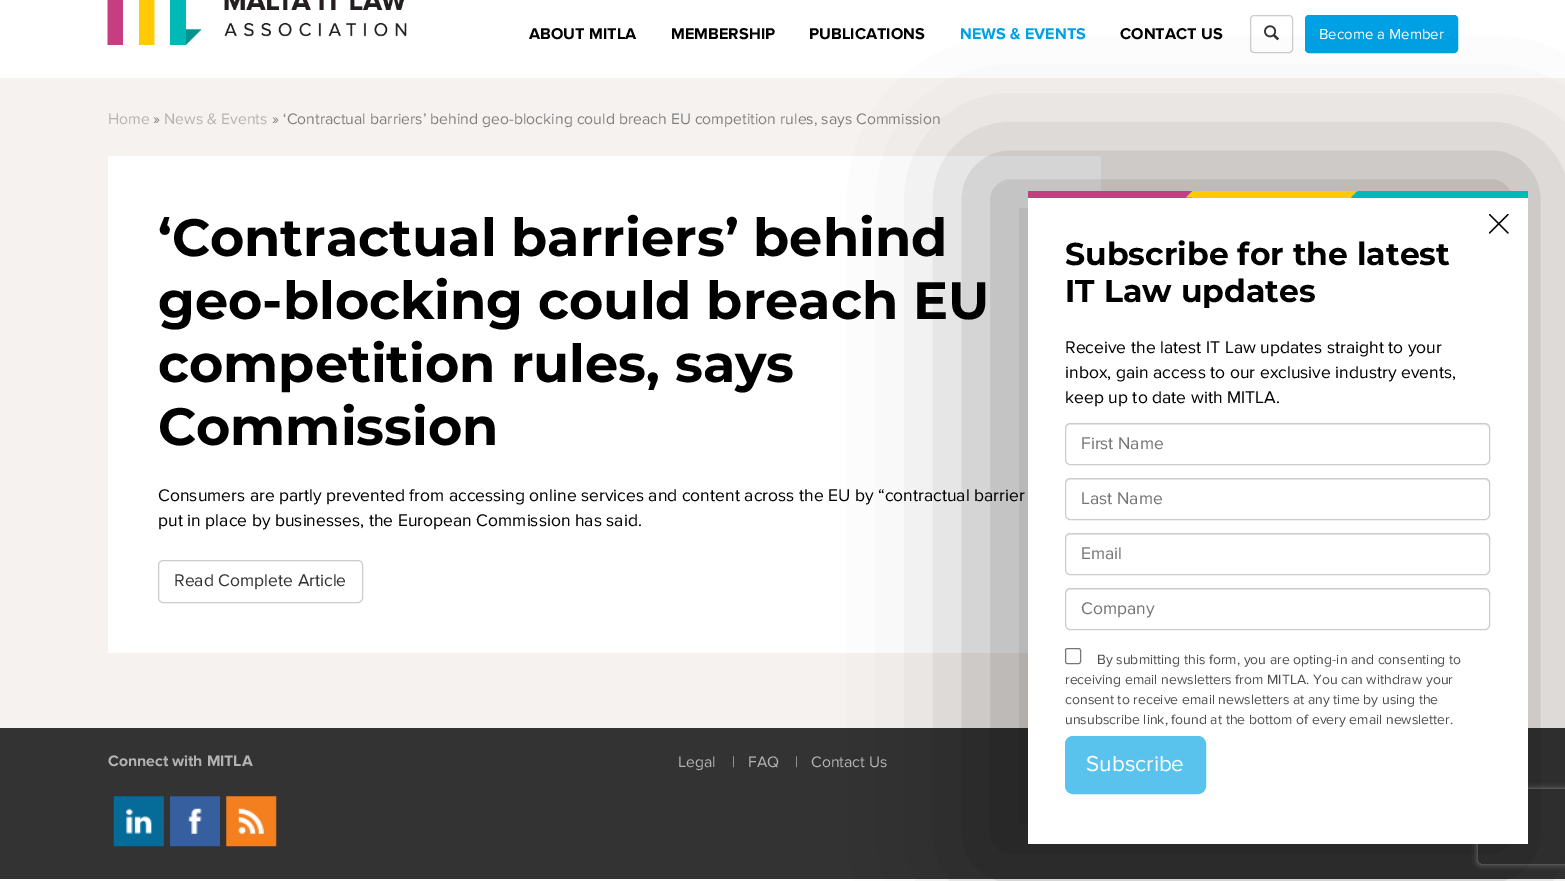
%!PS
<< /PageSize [1565 881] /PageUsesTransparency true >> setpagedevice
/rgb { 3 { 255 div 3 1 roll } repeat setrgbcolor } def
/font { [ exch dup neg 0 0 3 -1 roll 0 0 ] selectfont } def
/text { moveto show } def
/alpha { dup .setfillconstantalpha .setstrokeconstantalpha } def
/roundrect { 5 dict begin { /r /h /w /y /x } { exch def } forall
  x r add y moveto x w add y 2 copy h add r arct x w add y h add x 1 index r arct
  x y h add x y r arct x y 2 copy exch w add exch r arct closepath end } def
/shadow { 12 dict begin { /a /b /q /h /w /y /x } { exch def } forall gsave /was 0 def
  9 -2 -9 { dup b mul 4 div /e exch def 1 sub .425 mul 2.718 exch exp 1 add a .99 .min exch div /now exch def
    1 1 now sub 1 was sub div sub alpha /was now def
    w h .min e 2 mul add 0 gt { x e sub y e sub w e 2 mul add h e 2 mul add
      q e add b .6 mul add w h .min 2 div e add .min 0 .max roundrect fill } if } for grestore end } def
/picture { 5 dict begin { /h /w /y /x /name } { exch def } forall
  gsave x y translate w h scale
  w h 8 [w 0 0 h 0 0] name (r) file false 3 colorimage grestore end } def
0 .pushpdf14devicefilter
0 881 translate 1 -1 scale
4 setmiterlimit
255 255 255 rgb
0 0 1565 881 rectfill
(img_01.rgb) 107 0 300 45 picture
204 204 204 rgb
1250.5 15.5 42 37 3.5 roundrect stroke
(img_02.rgb) 1264 25 15 16 picture
0 161 228 rgb
1305.5 15.5 152 37 3.5 roundrect gsave fill grestore
stroke
246 242 239 rgb
0 78 1565 650 rectfill
255 255 255 rgb
108 156 993 497 rectfill
204 204 204 rgb
158.5 560.5 204 42 4.5 roundrect stroke
51 51 51 rgb
0 728 1565 151 rectfill
(img_03.rgb) 113 796 51 51 picture
(img_04.rgb) 170 796 50 51 picture
(img_05.rgb) 226 796 51 51 picture
0 0 0 rgb
976 165 550 703 0 57.5 0.33 shadow
gsave
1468 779 moveto 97 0 rlineto 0 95 rlineto -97 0 rlineto closepath 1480.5 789 moveto 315 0 rlineto 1.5 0 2.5 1 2.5 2.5 rcurveto 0 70 rlineto 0 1.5 -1 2.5 -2.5 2.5 rcurveto -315 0 rlineto -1.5 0 -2.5 -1 -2.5 -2.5 rcurveto 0 -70 rlineto 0 -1.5 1 -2.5 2.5 -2.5 rcurveto closepath eoclip newpath
128 128 128 rgb
1478 789 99 75 2.5 3 1 shadow
grestore
255 255 255 rgb
1028 198 500 646 rectfill
0 184 181 rgb
1186 191 342 7 rectfill
199 62 128 rgb
1028 191 moveto 164 0 rlineto -6 7 rlineto -158 0 rlineto closepath fill
255 202 5 rgb
1192.5 191 moveto 0 6.5 rlineto -6.5 0 rlineto closepath fill
1192 191 moveto 166 0 rlineto -7 7 rlineto -159 0 rlineto closepath fill
0 184 181 rgb
1357.5 191 moveto 0 6.5 rlineto -6.5 0 rlineto closepath fill
(img_06.rgb) 1489 214 20 20 picture
236 236 236 rgb
1070 425 moveto 415 0 rlineto 2 0 4 2 4 4 rcurveto 0 -3 -1 -5 -4 -5 rcurveto -415 0 rlineto -1 0 -3 1 -3 2 rcurveto -1 3 rlineto 0 -2 2 -4 4 -4 rcurveto closepath fill
204 204 204 rgb
1065.5 423.5 424 41 4.5 roundrect stroke
236 236 236 rgb
1070 480 moveto 415 0 rlineto 2 0 4 2 4 4 rcurveto 0 -3 -1 -5 -4 -5 rcurveto -415 0 rlineto -1 0 -3 1 -3 2 rcurveto -1 3 rlineto 0 -2 2 -4 4 -4 rcurveto closepath fill
204 204 204 rgb
1065.5 478.5 424 41 4.5 roundrect stroke
236 236 236 rgb
1070 535 moveto 415 0 rlineto 2 0 4 2 4 4 rcurveto 0 -3 -1 -5 -4 -5 rcurveto -415 0 rlineto -1 0 -3 1 -3 2 rcurveto -1 3 rlineto 0 -2 2 -4 4 -4 rcurveto closepath fill
204 204 204 rgb
1065.5 533.5 424 41 4.5 roundrect stroke
236 236 236 rgb
1070 590 moveto 415 0 rlineto 2 0 4 2 4 4 rcurveto 0 -3 -1 -5 -4 -5 rcurveto -415 0 rlineto -1 0 -3 1 -3 2 rcurveto -1 3 rlineto 0 -2 2 -4 4 -4 rcurveto closepath fill
204 204 204 rgb
1065.5 588.5 424 41 4.5 roundrect stroke
118 118 118 rgb
1065.5 648.5 15 15 2 roundrect stroke
89 194 237 rgb
1065.5 736.5 140 57 7.5 roundrect gsave fill grestore
stroke
/ProximaNova-Bold 16.25 font
0 0 0 rgb
(ABOUT MITLA) 529 39 text
(MEMBERSHIP) 671 39 text
(PUBLICATIONS) 809 39 text
0 161 228 rgb
(NEWS & EVENTS) 960 39 text
0 0 0 rgb
(CONTACT US) 1120 39 text
/ProximaNova-Regular 15 font
255 255 255 rgb
(Become a Member) 1319 39 text
/ProximaNova-Regular 15.75 font
179 179 179 rgb
(Home) 108 124 text
128 128 128 rgb
(») 153 124 text
179 179 179 rgb
(News & Events) 164 124 text
128 128 128 rgb
(» ‘Contractual barriers’ behind geo-blocking could breach EU competition rules, says Commission) 272 124 text
/Montserrat-Bold 52.5 font
0 0 0 rgb
(‘Contractual barriers’ behind) 158 256 text
(geo-blocking could breach EU) 158 319 text
(competition rules, says) 158 382 text
(Commission) 158 445 text
/ProximaNova-Regular 17.5 font
(Consumers are partly prevented from accessing online services and content across the EU by “contractual barrier) 158 501 text
(put in place by businesses, the European Commission has said.) 158 526 text
51 51 51 rgb
(Read Complete Article) 174 586 text
/ProximaNova-Bold 15.75 font
179 179 179 rgb
(Connect with MITLA) 108 766 text
/ProximaNova-Regular 15.75 font
(Legal) 678 767 text
(|) 732 767 text
(FAQ) 748 767 text
(|) 795 767 text
(Contact Us) 811 767 text
/Montserrat-Bold 31.5 font
0 0 0 rgb
(Subscribe for the latest) 1065 265 text
(IT Law updates) 1065 302 text
/ProximaNova-Regular 17.5 font
(Receive the latest IT Law updates straight to your) 1065 353 text
(inbox, gain access to our exclusive industry events,) 1065 378 text
(keep up to date with MITLA.) 1065 403 text
117 117 117 rgb
(First Name) 1081 449 text
(Last Name) 1081 504 text
(Email) 1081 559 text
(Company) 1081 614 text
/ProximaNova-Regular 14 font
77 77 77 rgb
(By submitting this form, you are opting-in and consenting to) 1097 664 text
(receiving email newsletters from MITLA. You can withdraw your) 1065 684 text
(consent to receive email newsletters at any time by using the) 1065 704 text
(unsubscribe link, found at the bottom of every email newsletter.) 1065 724 text
/ProximaNova-Regular 22.5 font
255 255 255 rgb
(Subscribe) 1086 771 text
.poppdf14devicefilter showpage
